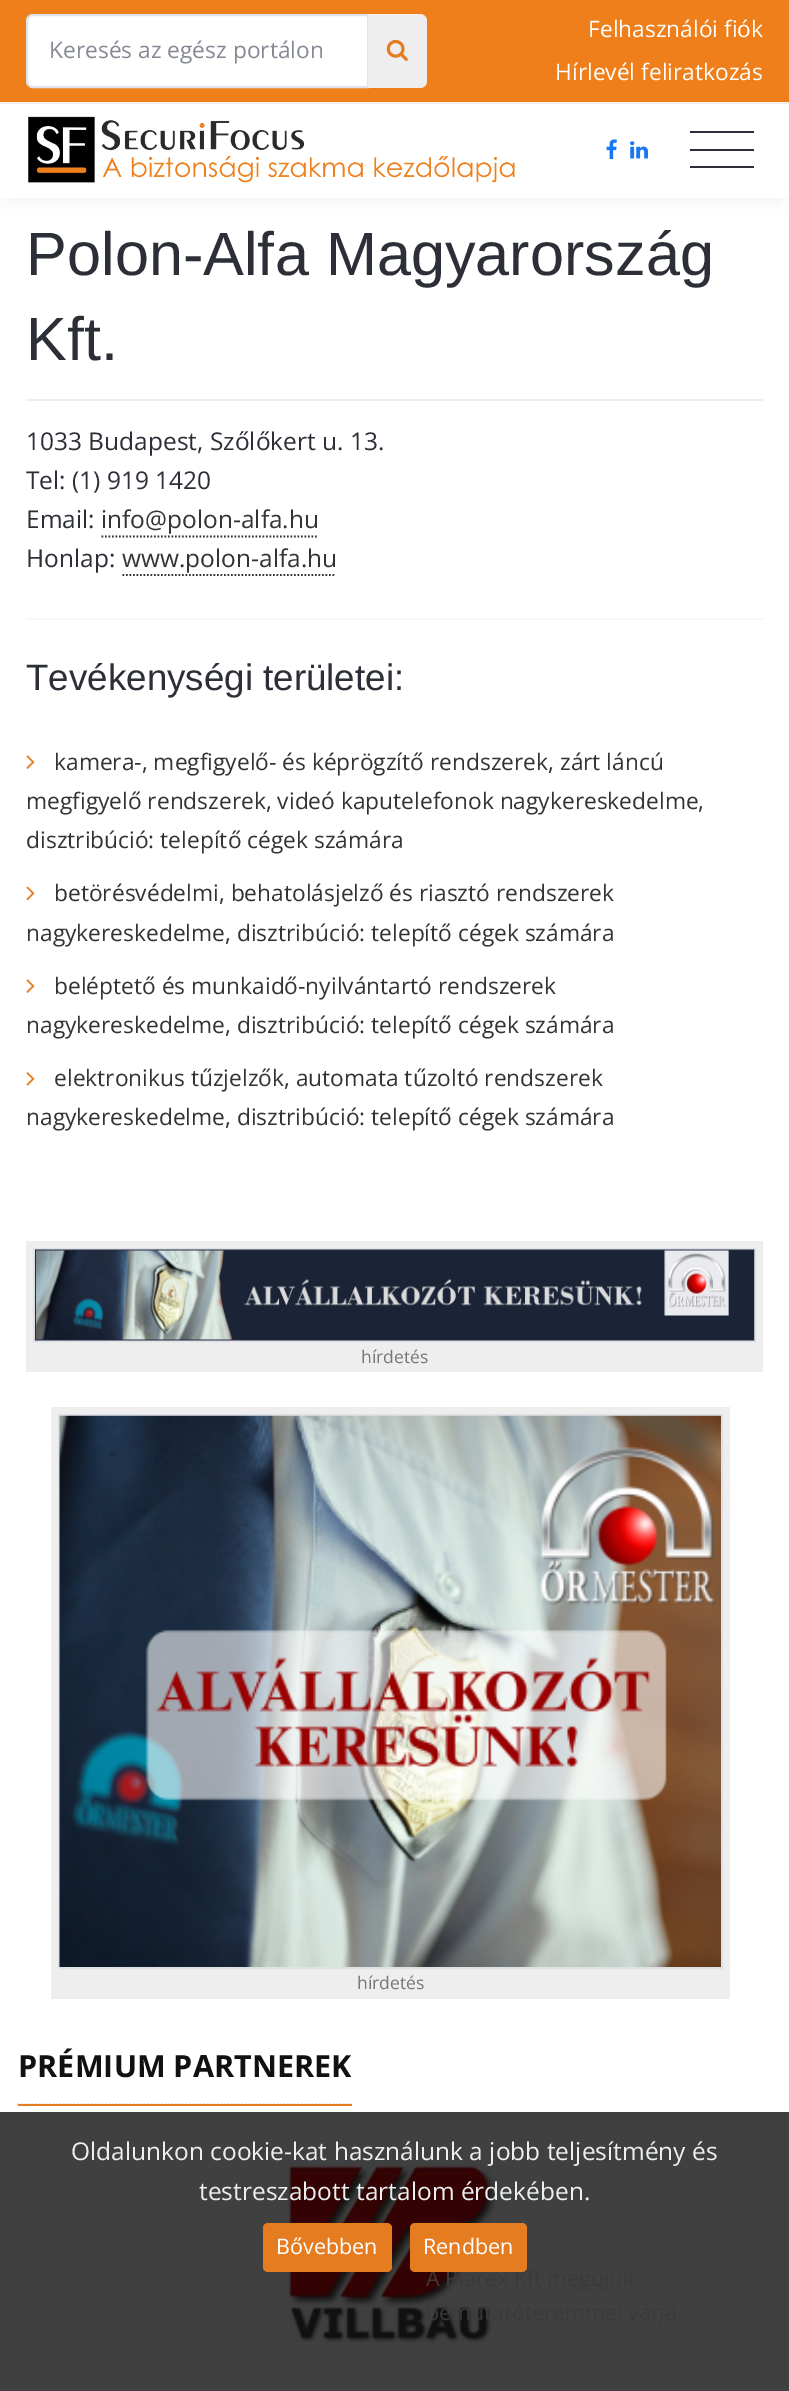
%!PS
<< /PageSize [789 2391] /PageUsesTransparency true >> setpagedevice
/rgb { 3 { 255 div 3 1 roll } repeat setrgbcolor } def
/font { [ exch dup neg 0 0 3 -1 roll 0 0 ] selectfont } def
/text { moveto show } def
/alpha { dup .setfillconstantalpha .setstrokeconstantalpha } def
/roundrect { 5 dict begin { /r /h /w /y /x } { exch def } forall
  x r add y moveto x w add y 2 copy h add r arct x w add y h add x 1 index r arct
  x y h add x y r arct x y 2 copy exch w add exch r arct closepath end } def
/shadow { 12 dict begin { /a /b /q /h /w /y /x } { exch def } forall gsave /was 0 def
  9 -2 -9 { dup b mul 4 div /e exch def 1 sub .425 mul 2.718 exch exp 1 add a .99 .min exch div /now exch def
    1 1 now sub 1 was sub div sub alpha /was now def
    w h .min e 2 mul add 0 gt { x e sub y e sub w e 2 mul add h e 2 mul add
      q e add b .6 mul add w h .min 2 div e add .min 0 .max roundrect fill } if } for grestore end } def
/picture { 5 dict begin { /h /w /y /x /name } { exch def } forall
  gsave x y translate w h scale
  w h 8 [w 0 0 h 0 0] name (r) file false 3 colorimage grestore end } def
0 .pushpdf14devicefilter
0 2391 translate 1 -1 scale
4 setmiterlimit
255 255 255 rgb
0 0 789 2391 rectfill
64 64 64 rgb
0 2112 789 279 rectfill
0 0 0 rgb
11 19 768 177 0 9 0.1 shadow
239 127 26 rgb
0 0 789 102 rectfill
238 238 238 rgb
0 102 789 2 rectfill
255 255 255 rgb
32 16 moveto 336 0 rlineto 0 70 rlineto -336 0 rlineto -2 0 -4 -2 -4 -4 rcurveto 0 -62 rlineto 0 -2 2 -4 4 -4 rcurveto closepath fill
224 228 234 rgb
2 setlinewidth
33 15 moveto 335 0 rlineto 0 72 rlineto -335 0 rlineto -3.5 0 -6 -2.5 -6 -6 rcurveto 0 -60 rlineto 0 -3.5 2.5 -6 6 -6 rcurveto closepath stroke
238 238 238 rgb
368 14 moveto 52 0 rlineto 4 0 7 3 7 7 rcurveto 0 60 rlineto 0 4 -3 7 -7 7 rcurveto -52 0 rlineto closepath fill
(img_01.rgb) 386 39 22 22 picture
255 255 255 rgb
0 104 789 94 rectfill
(img_02.rgb) 28 116 487 67 picture
(img_03.rgb) 606 139 11 20 picture
(img_04.rgb) 630 141 18 18 picture
44 47 55 rgb
690 131 64 2 rectfill
690 149 64 2 rectfill
690 166 64 2 rectfill
238 238 238 rgb
26 399 737 2 rectfill
51 51 51 rgb
1.8 setlinewidth
[1.75 1.75] 0 setdash
101.5 536.5 moveto 217 0 rlineto stroke
122.5 575 moveto 213.5 0 rlineto stroke
247 247 247 rgb
26 618 737 2 rectfill
(img_05.rgb) 26 755 9 14 picture
(img_06.rgb) 26 886 9 15 picture
(img_05.rgb) 26 979 9 14 picture
(img_07.rgb) 26 1072 9 14 picture
238 238 238 rgb
26 1241 737 131 rectfill
222 226 230 rgb
2 setlinewidth
[] 0 setdash
34 1249 721 92 rectstroke
(img_08.rgb) 35 1249 720 92 picture
238 238 238 rgb
51 1407 679 592 rectfill
222 226 230 rgb
59 1415 663 553 rectstroke
(img_09.rgb) 59 1415 662 552 picture
204 204 204 rgb
1.8 setlinewidth
[1.75 1.75] 0 setdash
17.5 2104.5 moveto 334.5 0 rlineto stroke
229 125 32 rgb
18 2104 334 2 rectfill
(img_10.rgb) 278 2161 220 183 picture
263 2223 129 49 5 roundrect fill
/OpenSans-Regular 22.75 font
133 137 147 rgb
(Keresés az egész portálon) 49 58 text
255 255 255 rgb
(Felhasználói fiók) 588 37 text
(Hírlevél feliratkozás) 555 80 text
/LiberationSans-Regular 61.25 font
44 47 55 rgb
(Polon-Alfa Magyarország) 26 275 text
(Kft.) 26 360 text
/OpenSans-Regular 24.5 font
(1033 Budapest, Szőlőkert u. 13.) 26 450 text
(Tel: \(1\) 919 1420) 26 489 text
(Email:) 26 528 text
51 51 51 rgb
(info@polon-alfa.hu) 101 528 text
44 47 55 rgb
(Honlap:) 26 567 text
51 51 51 rgb
(www.polon-alfa.hu) 122 567 text
/LiberationSans-Regular 36.75 font
44 47 55 rgb
(Tevékenységi területei:) 26 690 text
/OpenSans-Regular 22.75 font
51 51 51 rgb
(kamera-, megfigyelő- és képrögzítő rendszerek, zárt láncú) 54 770 text
(megfigyelő rendszerek, videó kaputelefonok nagykereskedelme,) 26 809 text
(disztribúció: telepítő cégek számára) 26 848 text
(betörésvédelmi, behatolásjelző és riasztó rendszerek) 54 901 text
(nagykereskedelme, disztribúció: telepítő cégek számára) 26 941 text
(beléptető és munkaidő-nyilvántartó rendszerek) 54 994 text
(nagykereskedelme, disztribúció: telepítő cégek számára) 26 1033 text
(elektronikus tűzjelzők, automata tűzoltó rendszerek) 54 1086 text
(nagykereskedelme, disztribúció: telepítő cégek számára) 26 1125 text
/OpenSans-Regular 17.5 font
119 119 119 rgb
(hírdetés) 361 1363 text
(hírdetés) 357 1989 text
/OpenSans-Bold 30.6 font
17 17 17 rgb
(PRÉMIUM PARTNEREK) 18 2077 text
/OpenSans-Regular 24.5 font
236 240 241 rgb
(Oldalunkon cookie-kat használunk a jobb teljesítmény és) 71 2160 text
(testreszabott tartalom érdekében.) 199 2200 text
/OpenSans-Regular 21.5 font
255 255 255 rgb
(Bővebben) 276 2254 text
61 57 57 rgb
(A Riarex Kft megújult) 426 2286 text
229 125 32 rgb
410 2223 117 49 5 roundrect fill
255 255 255 rgb
(Rendben) 423 2254 text
61 57 57 rgb
(bemutatóteremmel várja) 426 2320 text
.poppdf14devicefilter showpage
